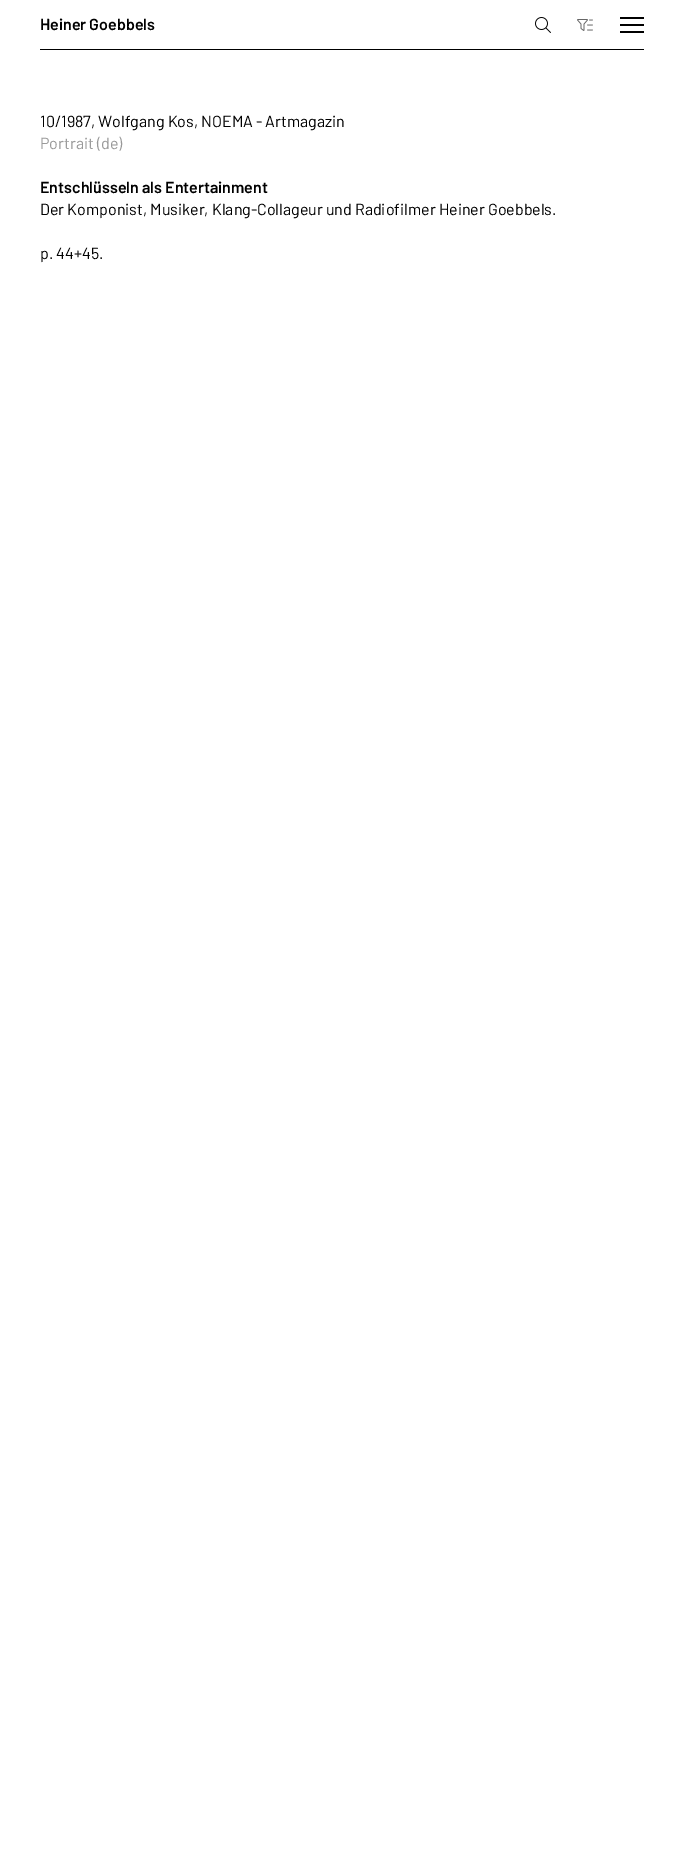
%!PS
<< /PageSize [684 1856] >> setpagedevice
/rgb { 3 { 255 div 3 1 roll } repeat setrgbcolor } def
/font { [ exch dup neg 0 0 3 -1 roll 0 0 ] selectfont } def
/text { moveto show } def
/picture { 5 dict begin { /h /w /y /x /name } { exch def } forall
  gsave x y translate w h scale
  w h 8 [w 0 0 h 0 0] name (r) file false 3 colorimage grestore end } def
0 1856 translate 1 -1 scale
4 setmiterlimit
255 255 255 rgb
0 0 684 1856 rectfill
0 0 0 rgb
40 49 604 1 rectfill
(img_01.rgb) 535 17 16 16 picture
(img_02.rgb) 577 19 16 12 picture
620 17 24 2 rectfill
620 31 24 2 rectfill
620 24 24 2 rectfill
/Barlow-SemiBold 16 font
(Heiner Goebbels) 40 30 text
/Barlow-Regular 16 font
(10/1987, Wolfgang Kos, NOEMA - Artmagazin) 40 127 text
153 153 153 rgb
(Portrait \(de\)) 40 149 text
/Barlow-SemiBold 16 font
0 0 0 rgb
(Entschlüsseln als Entertainment) 40 193 text
/Barlow-Regular 16 font
(Der Komponist, Musiker, Klang-Collageur und Radiofilmer Heiner Goebbels.) 40 215 text
(p. 44+45.) 40 259 text
showpage
